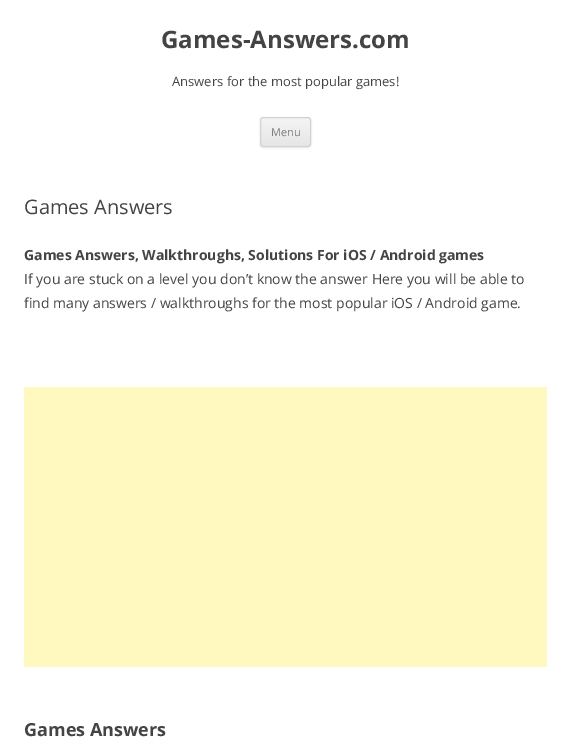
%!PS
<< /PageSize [571 744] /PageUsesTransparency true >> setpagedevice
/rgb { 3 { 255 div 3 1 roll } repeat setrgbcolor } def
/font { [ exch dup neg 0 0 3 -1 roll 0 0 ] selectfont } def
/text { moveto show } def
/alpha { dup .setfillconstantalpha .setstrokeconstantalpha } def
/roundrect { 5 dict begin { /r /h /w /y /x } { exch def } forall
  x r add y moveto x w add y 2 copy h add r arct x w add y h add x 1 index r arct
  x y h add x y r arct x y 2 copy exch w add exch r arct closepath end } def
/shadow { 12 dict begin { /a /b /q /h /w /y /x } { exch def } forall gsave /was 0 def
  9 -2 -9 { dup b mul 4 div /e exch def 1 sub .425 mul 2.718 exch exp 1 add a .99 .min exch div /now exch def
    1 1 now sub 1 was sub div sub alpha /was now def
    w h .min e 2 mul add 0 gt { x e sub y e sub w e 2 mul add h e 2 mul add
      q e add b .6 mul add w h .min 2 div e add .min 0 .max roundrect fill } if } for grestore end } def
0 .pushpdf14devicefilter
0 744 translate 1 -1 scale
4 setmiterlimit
255 255 255 rgb
0 0 571 744 rectfill
64 64 64 rgb
260 118 51 30 3 1 0.1 shadow
gsave
260 117 51 30 3 roundrect clip newpath
gsave 260 118 moveto 51 0 rlineto 0 28 rlineto -51 0 rlineto closepath clip newpath
<< /ShadingType 2 /ColorSpace /DeviceRGB /Coords [286 118 286 146] /Extend [true true] /Function << /FunctionType 2 /Domain [0 1] /C0 [0.957 0.957 0.957] /C1 [0.902 0.902 0.902] /N 1 >> >> shfill grestore
grestore
210 210 210 rgb
260.5 117.5 50 29 2.5 roundrect stroke
255 249 192 rgb
24 387 523 280 rectfill
/OpenSans-Bold 24 font
68 68 68 rgb
(Games-Answers.com) 161 48 text
/OpenSans-Regular 13 font
(Answers for the most popular games!) 172 86 text
/OpenSans-Regular 11 font
124 124 124 rgb
(Menu) 271 136 text
/OpenSans-Regular 20 font
68 68 68 rgb
(Games Answers) 24 214 text
/OpenSans-Bold 14 font
(Games Answers, Walkthroughs, Solutions For iOS / Android games) 24 260 text
/OpenSans-Regular 14 font
(If you are stuck on a level you don’t know the answer Here you will be able to) 24 284 text
(find many answers / walkthroughs for the most popular iOS / Android game.) 24 308 text
/OpenSans-Bold 18 font
(Games Answers) 24 736 text
.poppdf14devicefilter showpage
